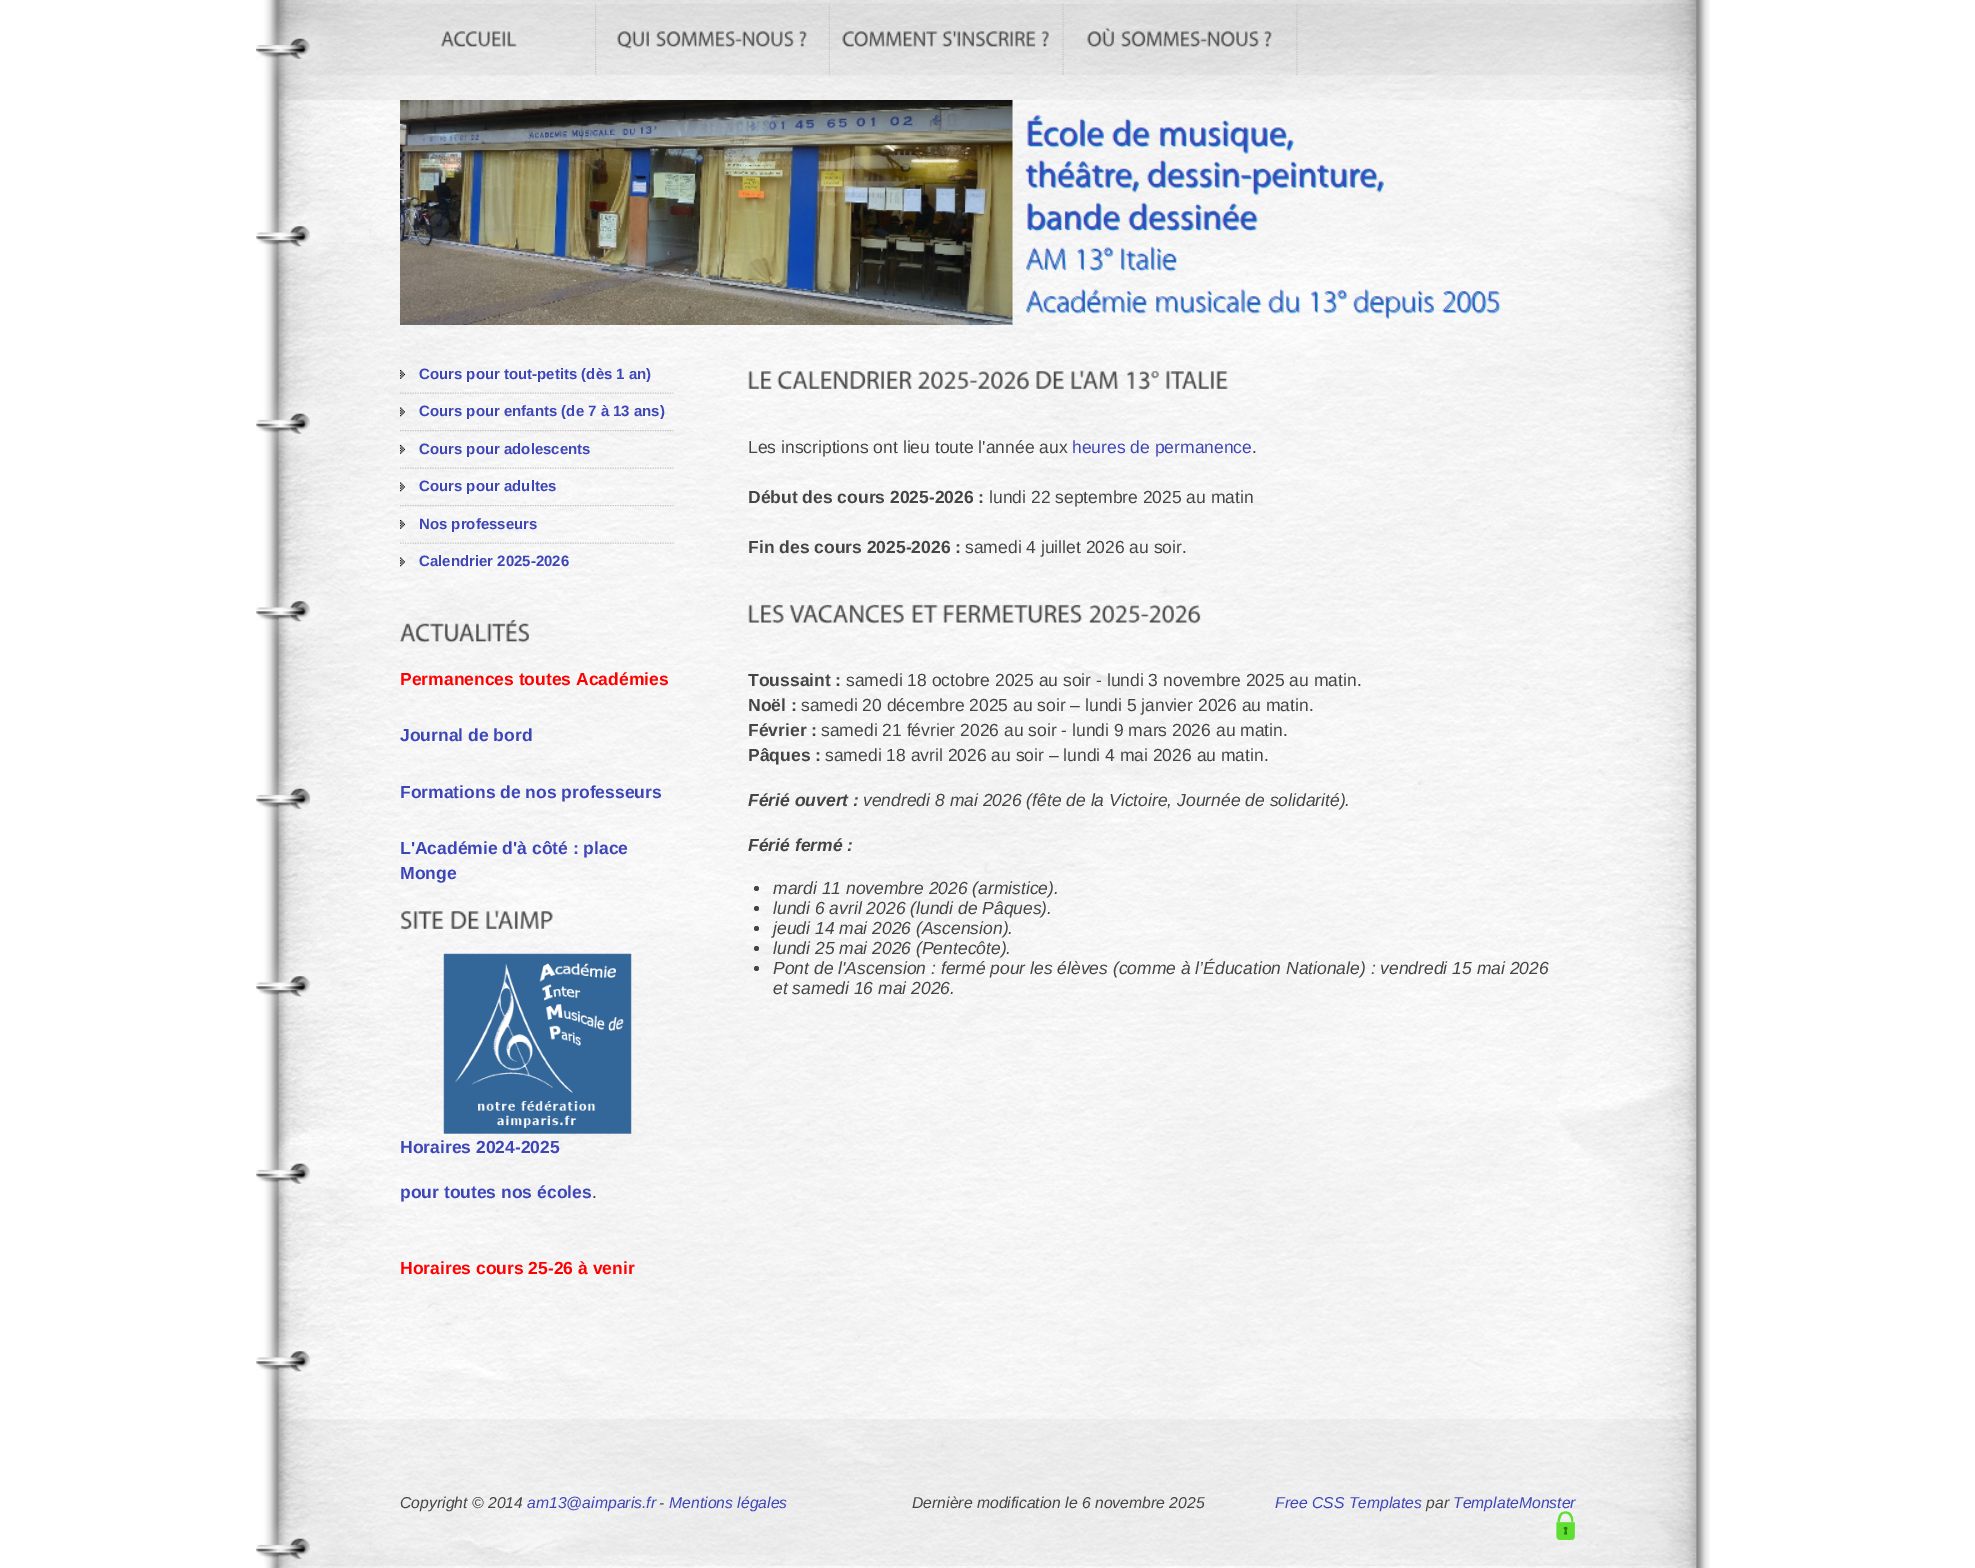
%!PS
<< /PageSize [1975 1568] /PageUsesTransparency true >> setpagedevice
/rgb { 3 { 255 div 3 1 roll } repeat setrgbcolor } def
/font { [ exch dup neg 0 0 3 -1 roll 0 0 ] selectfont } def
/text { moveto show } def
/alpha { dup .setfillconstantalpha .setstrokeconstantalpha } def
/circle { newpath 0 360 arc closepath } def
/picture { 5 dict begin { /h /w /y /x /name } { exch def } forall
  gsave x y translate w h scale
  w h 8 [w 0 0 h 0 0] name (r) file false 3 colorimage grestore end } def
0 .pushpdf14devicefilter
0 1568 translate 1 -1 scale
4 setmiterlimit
255 255 255 rgb
0 0 1975 1568 rectfill
(img_01.rgb) 256 0 1454 1568 picture
(img_02.rgb) 256 0 1441 100 picture
(img_03.rgb) 595 4 2 71 picture
(img_04.rgb) 441 31 76 16 picture
(img_05.rgb) 828 4 2 71 picture
(img_06.rgb) 617 31 32 18 picture
(img_07.rgb) 656 31 138 16 picture
(img_08.rgb) 798 31 9 16 picture
(img_09.rgb) 1062 4 2 71 picture
(img_10.rgb) 842 31 96 16 picture
(img_11.rgb) 942 31 94 16 picture
(img_12.rgb) 1041 31 8 16 picture
(img_13.rgb) 1296 4 2 71 picture
(img_14.rgb) 1087 27 27 20 picture
(img_15.rgb) 1121 31 138 16 picture
(img_16.rgb) 1263 31 9 16 picture
(img_17.rgb) 400 100 613 225 picture
(img_18.rgb) 1027 114 77 34 picture
(img_19.rgb) 1112 118 39 30 picture
(img_20.rgb) 1159 120 135 34 picture
(img_21.rgb) 1025 160 115 33 picture
(img_22.rgb) 1147 160 237 36 picture
(img_23.rgb) 1027 202 94 30 picture
(img_24.rgb) 1128 202 130 30 picture
(img_25.rgb) 1026 247 41 24 picture
(img_26.rgb) 1077 247 37 25 picture
(img_27.rgb) 1121 246 56 26 picture
(img_28.rgb) 1026 288 121 26 picture
(img_29.rgb) 1156 288 106 26 picture
(img_30.rgb) 1268 288 33 26 picture
(img_31.rgb) 1311 289 37 25 picture
(img_32.rgb) 1353 288 81 31 picture
(img_33.rgb) 1442 291 59 23 picture
(img_34.rgb) 400 392 274 2 picture
(img_35.rgb) 400 370 5 9 picture
(img_36.rgb) 400 430 274 2 picture
(img_37.rgb) 400 407 5 10 picture
(img_38.rgb) 400 467 274 2 picture
(img_39.rgb) 400 445 5 9 picture
(img_40.rgb) 400 505 274 2 picture
(img_41.rgb) 400 482 5 10 picture
(img_42.rgb) 400 542 274 2 picture
(img_43.rgb) 400 520 5 9 picture
(img_44.rgb) 400 557 5 10 picture
(img_45.rgb) 400 619 130 24 picture
(img_46.rgb) 400 911 44 19 picture
(img_47.rgb) 451 911 28 18 picture
(img_48.rgb) 486 910 67 19 picture
(img_49.rgb) 443 953 189 181 picture
(img_50.rgb) 748 371 24 18 picture
(img_51.rgb) 777 371 135 19 picture
(img_52.rgb) 917 371 112 19 picture
(img_53.rgb) 1036 371 28 18 picture
(img_54.rgb) 1071 370 47 19 picture
(img_55.rgb) 1127 371 32 20 picture
(img_56.rgb) 1166 371 62 18 picture
(img_57.rgb) 748 604 36 20 picture
(img_58.rgb) 789 604 115 20 picture
(img_59.rgb) 912 604 26 19 picture
(img_60.rgb) 943 604 139 20 picture
(img_61.rgb) 1088 604 113 20 picture
69 69 69 rgb
756.5 888.5 2.5 circle fill
756.5 908.5 2.5 circle fill
756.5 928.5 2.5 circle fill
756.5 948.5 2.5 circle fill
756.5 968.5 2.5 circle fill
0.03 alpha
0 0 0 rgb
279 1419 1417 147 rectfill
1 alpha
(img_62.rgb) 1556 1511 19 29 picture
/LiberationSans-Bold 15 font
61 70 183 rgb
(Cours pour tout-petits \(dès 1 an\)) 419 379 text
(Cours pour enfants \(de 7 à 13 ans\)) 419 416 text
(Cours pour adolescents) 419 454 text
(Cours pour adultes) 419 491 text
(Nos professeurs) 419 529 text
(Calendrier 2025-2026) 419 566 text
/LiberationSans-Bold 17.5 font
255 0 0 rgb
(Permanences toutes Académies) 400 685 text
61 70 183 rgb
(Journal de bord) 400 741 text
(Formations de nos professeurs) 400 798 text
(L'Académie d'à côté : place) 400 854 text
(Monge) 400 879 text
(Horaires 2024-2025) 400 1153 text
(pour toutes nos écoles) 400 1198 text
/LiberationSans-Regular 17.5 font
69 69 69 rgb
(.) 592 1198 text
/LiberationSans-Bold 17.5 font
255 0 0 rgb
(Horaires cours 25-26 à venir) 400 1274 text
/LiberationSans-Regular 17.5 font
69 69 69 rgb
(Les inscriptions ont lieu toute l'année aux) 748 453 text
61 70 183 rgb
(heures de permanence) 1072 453 text
69 69 69 rgb
(.) 1252 453 text
/LiberationSans-Bold 17.5 font
(Début des cours 2025-2026 :) 748 503 text
/LiberationSans-Regular 17.5 font
(lundi 22 septembre 2025 au matin) 989 503 text
/LiberationSans-Bold 17.5 font
(Fin des cours 2025-2026 :) 748 553 text
/LiberationSans-Regular 17.5 font
(samedi 4 juillet 2026 au soir.) 965 553 text
/LiberationSans-Bold 17.5 font
(Toussaint :) 748 686 text
/LiberationSans-Regular 17.5 font
(samedi 18 octobre 2025 au soir - lundi 3 novembre 2025 au matin.) 846 686 text
/LiberationSans-Bold 17.5 font
(Noël :) 748 711 text
/LiberationSans-Regular 17.5 font
(samedi 20 décembre 2025 au soir – lundi 5 janvier 2026 au matin.) 801 711 text
/LiberationSans-Bold 17.5 font
(Février :) 748 736 text
/LiberationSans-Regular 17.5 font
(samedi 21 février 2026 au soir - lundi 9 mars 2026 au matin.) 821 736 text
/LiberationSans-Bold 17.5 font
(Pâques :) 748 761 text
/LiberationSans-Regular 17.5 font
(samedi 18 avril 2026 au soir – lundi 4 mai 2026 au matin.) 825 761 text
/LiberationSans-BoldItalic 17.5 font
(Férié ouvert :) 748 806 text
/LiberationSans-Italic 17.5 font
(vendredi 8 mai 2026 \(fête de la Victoire, Journée de solidarité\).) 863 806 text
/LiberationSans-BoldItalic 17.5 font
(Férié fermé :) 748 851 text
/LiberationSans-Italic 17.5 font
(mardi 11 novembre 2026 \(armistice\).) 773 894 text
(lundi 6 avril 2026 \(lundi de Pâques\).) 773 914 text
(jeudi 14 mai 2026 \(Ascension\).) 773 934 text
(lundi 25 mai 2026 \(Pentecôte\).) 773 954 text
(Pont de l'Ascension : fermé pour les élèves \(comme à l’Éducation Nationale\) : vendredi 15 mai 2026) 773 974 text
(et samedi 16 mai 2026.) 773 994 text
/LiberationSans-Italic 15.75 font
(Copyright © 2014) 400 1508 text
61 70 183 rgb
(am13@aimparis.fr) 527 1508 text
69 69 69 rgb
(-) 659 1508 text
61 70 183 rgb
(Mentions légales) 669 1508 text
69 69 69 rgb
(Dernière modification le 6 novembre 2025) 912 1508 text
61 70 183 rgb
(Free CSS Templates) 1275 1508 text
69 69 69 rgb
(par) 1426 1508 text
61 70 183 rgb
(TemplateMonster) 1453 1508 text
.poppdf14devicefilter showpage
